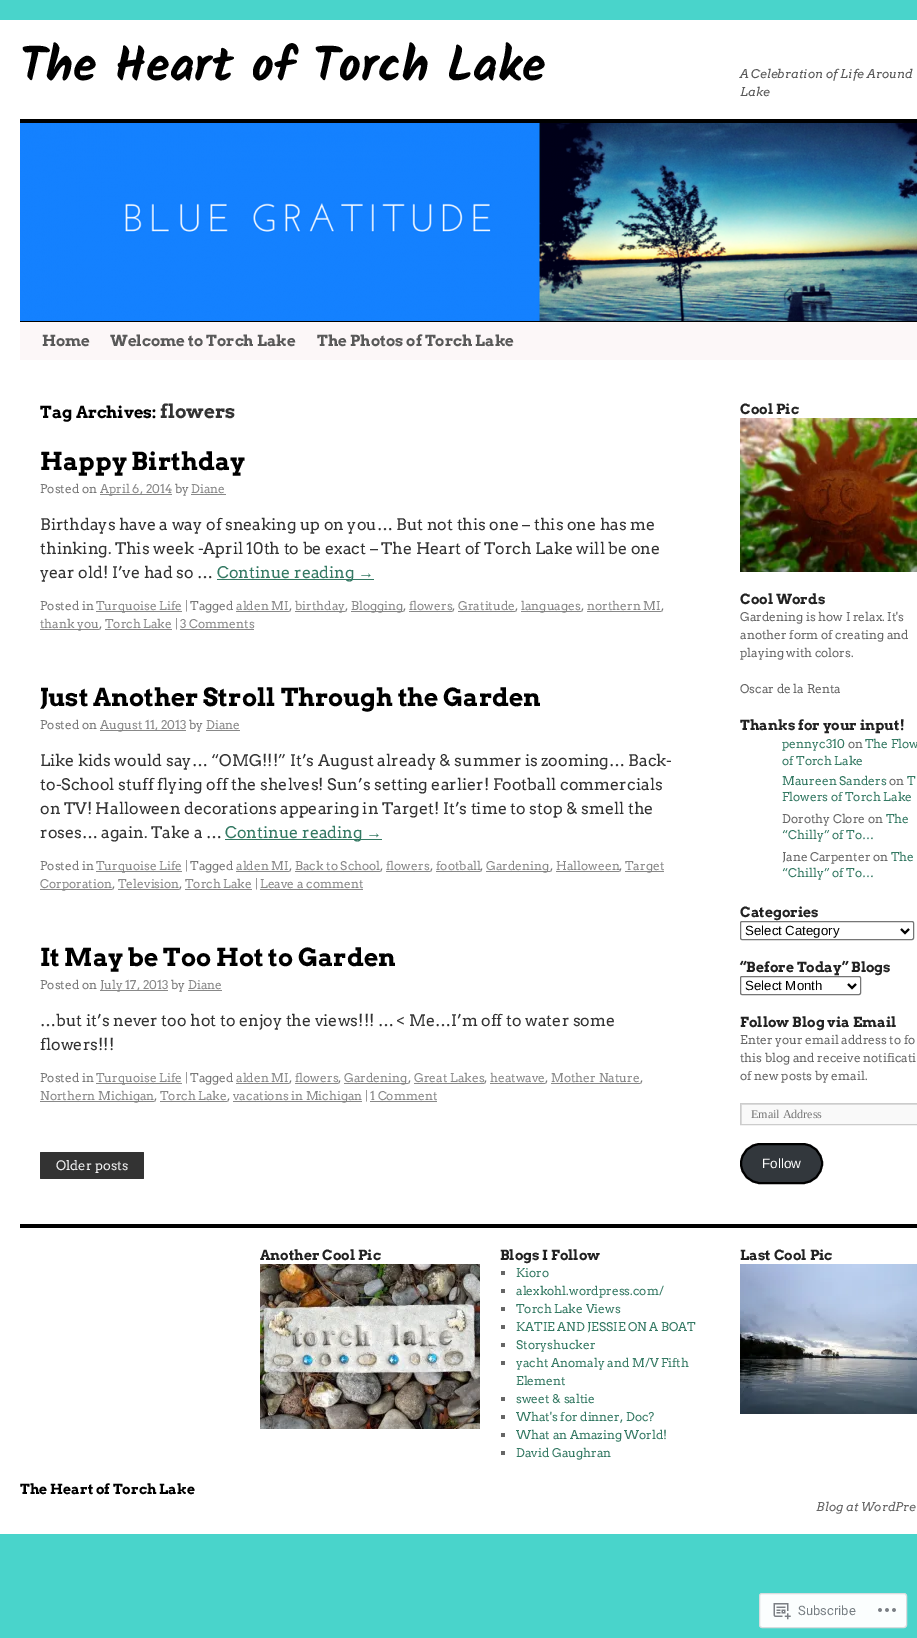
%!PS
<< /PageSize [917 1638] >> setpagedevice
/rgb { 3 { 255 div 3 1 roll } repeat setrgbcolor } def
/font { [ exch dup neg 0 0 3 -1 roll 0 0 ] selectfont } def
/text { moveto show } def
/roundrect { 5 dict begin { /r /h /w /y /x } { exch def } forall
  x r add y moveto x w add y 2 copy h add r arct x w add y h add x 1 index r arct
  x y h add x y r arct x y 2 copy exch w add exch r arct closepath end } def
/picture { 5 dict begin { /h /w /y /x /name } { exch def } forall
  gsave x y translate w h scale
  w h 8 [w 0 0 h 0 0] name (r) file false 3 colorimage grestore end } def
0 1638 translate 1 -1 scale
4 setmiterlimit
73 212 203 rgb
0 0 917 1638 rectfill
255 255 255 rgb
0 20 917 1514 rectfill
0 0 0 rgb
20 119 897 4 rectfill
20 321 897 1 rectfill
(img_01.rgb) 20 123 897 198 picture
252 247 248 rgb
20 322 897 38 rectfill
136 136 136 rgb
100 494 72 1 rectfill
191 494 35 1 rectfill
52 121 99 rgb
217 579 157 1 rectfill
136 136 136 rgb
96 611 86 1 rectfill
236 611 53 1 rectfill
295 611 50 1 rectfill
351 611 52 1 rectfill
409 611 43 1 rectfill
458 611 57 1 rectfill
521 611 60 1 rectfill
587 611 74 1 rectfill
40 629 59 1 rectfill
105 629 67 1 rectfill
180 629 74 1 rectfill
100 730 86 1 rectfill
206 730 34 1 rectfill
52 121 99 rgb
225 839 157 1 rectfill
136 136 136 rgb
96 871 86 1 rectfill
236 871 53 1 rectfill
295 871 85 1 rectfill
386 871 44 1 rectfill
436 871 44 1 rectfill
486 871 64 1 rectfill
556 871 63 1 rectfill
625 871 39 1 rectfill
40 889 72 1 rectfill
118 889 61 1 rectfill
185 889 67 1 rectfill
260 889 103 1 rectfill
100 990 68 1 rectfill
188 990 34 1 rectfill
96 1083 86 1 rectfill
236 1083 53 1 rectfill
295 1083 43 1 rectfill
344 1083 64 1 rectfill
414 1083 70 1 rectfill
490 1083 55 1 rectfill
551 1083 89 1 rectfill
40 1101 114 1 rectfill
160 1101 67 1 rectfill
233 1101 129 1 rectfill
370 1101 67 1 rectfill
51 51 51 rgb
40 1152 104 27 1 roundrect fill
(img_02.rgb) 740 418 177 154 picture
118 118 118 rgb
740.5 921.5 173 18 1.5 roundrect stroke
0 0 0 rgb
2 setlinewidth
901 929 moveto 4 4 rlineto 4 -4 rlineto stroke
118 118 118 rgb
1 setlinewidth
740.5 976.5 120 18 1.5 roundrect stroke
0 0 0 rgb
2 setlinewidth
848 984 moveto 4 4 rlineto 4 -4 rlineto stroke
249 249 249 rgb
742 1105 175 19 rectfill
gsave
741 1104 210 20 rectclip
224 224 224 rgb
642 1005 moveto 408 0 rlineto 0 218 rlineto -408 0 rlineto closepath 742 1105 moveto 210 0 rlineto 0 20 rlineto -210 0 rlineto closepath eofill
grestore
204 204 204 rgb
1 setlinewidth
740.5 1103.5 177 21 rectstroke
50 55 60 rgb
741 1144 81 39 19.5 roundrect gsave fill grestore
0 0 0 rgb
2 setlinewidth
stroke
20 1224 897 4 rectfill
(img_03.rgb) 260 1264 220 165 picture
102 102 102 rgb
501 1271 4 4 rectfill
501 1289 4 4 rectfill
501 1307 4 4 rectfill
501 1325 4 4 rectfill
501 1343 4 4 rectfill
501 1361 4 4 rectfill
501 1397 4 4 rectfill
501 1415 4 4 rectfill
501 1433 4 4 rectfill
501 1451 4 4 rectfill
(img_04.rgb) 740 1264 177 150 picture
251 254 254 rgb
759.5 1593.5 147 34 2.5 roundrect gsave fill grestore
217 220 222 rgb
1 setlinewidth
stroke
(img_05.rgb) 773 1603 18 17 picture
(img_06.rgb) 878 1608 18 4 picture
/Kalam-Bold 48 font
0 0 0 rgb
(The Heart of Torch Lake) 20 81 text
/Arvo-Italic 12 font
89 89 89 rgb
(A Celebration of Life Around) 740 78 text
(Lake) 740 96 text
/Arvo-Bold 15.25 font
(Home) 42 346 text
(Welcome to Torch Lake) 110 346 text
(The Photos of Torch Lake) 317 346 text
/Arvo-Bold 16.5 font
0 0 0 rgb
(Tag Archives:) 40 418 text
/Arvo-Bold 19 font
51 51 51 rgb
(flowers) 160 418 text
/Arvo-Bold 24.8 font
0 0 0 rgb
(Happy Birthday) 40 470 text
/Arvo-Regular 12 font
119 119 119 rgb
(Posted on) 40 493 text
136 136 136 rgb
(April 6, 2014) 100 493 text
119 119 119 rgb
(by) 175 493 text
136 136 136 rgb
(Diane) 191 493 text
/Arvo-Regular 16 font
51 51 51 rgb
(Birthdays have a way of sneaking up on you… But not this one – this one has me) 40 530 text
(thinking. This week -April 10th to be exact – The Heart of Torch Lake will be one) 40 554 text
(year old! I’ve had so …) 40 578 text
52 121 99 rgb
(Continue reading) 217 578 text
/LiberationSerif-Regular 16 font
(→) 358 578 text
/Arvo-Regular 12 font
119 119 119 rgb
(Posted in) 40 610 text
136 136 136 rgb
(Turquoise Life) 96 610 text
119 119 119 rgb
(| Tagged) 185 610 text
136 136 136 rgb
(alden MI) 236 610 text
119 119 119 rgb
(,) 289 610 text
136 136 136 rgb
(birthday) 295 610 text
119 119 119 rgb
(,) 345 610 text
136 136 136 rgb
(Blogging) 351 610 text
119 119 119 rgb
(,) 403 610 text
136 136 136 rgb
(flowers) 409 610 text
119 119 119 rgb
(,) 452 610 text
136 136 136 rgb
(Gratitude) 458 610 text
119 119 119 rgb
(,) 515 610 text
136 136 136 rgb
(languages) 521 610 text
119 119 119 rgb
(,) 581 610 text
136 136 136 rgb
(northern MI) 587 610 text
119 119 119 rgb
(,) 661 610 text
136 136 136 rgb
(thank you) 40 628 text
119 119 119 rgb
(,) 99 628 text
136 136 136 rgb
(Torch Lake) 105 628 text
119 119 119 rgb
(|) 175 628 text
136 136 136 rgb
(3 Comments) 180 628 text
/Arvo-Bold 24.8 font
0 0 0 rgb
(Just Another Stroll Through the Garden) 40 706 text
/Arvo-Regular 12 font
119 119 119 rgb
(Posted on) 40 729 text
136 136 136 rgb
(August 11, 2013) 100 729 text
119 119 119 rgb
(by) 189 729 text
136 136 136 rgb
(Diane) 206 729 text
/Arvo-Regular 16 font
51 51 51 rgb
(Like kids would say… “OMG!!!” It’s August already & summer is zooming… Back-) 40 766 text
(to-School stuff flying off the shelves! Sun’s setting earlier! Football commercials) 40 790 text
(on TV! Halloween decorations appearing in Target! It’s time to stop & smell the) 40 814 text
(roses… again. Take a …) 40 838 text
52 121 99 rgb
(Continue reading) 225 838 text
/LiberationSerif-Regular 16 font
(→) 366 838 text
/Arvo-Regular 12 font
119 119 119 rgb
(Posted in) 40 870 text
136 136 136 rgb
(Turquoise Life) 96 870 text
119 119 119 rgb
(| Tagged) 185 870 text
136 136 136 rgb
(alden MI) 236 870 text
119 119 119 rgb
(,) 289 870 text
136 136 136 rgb
(Back to School) 295 870 text
119 119 119 rgb
(,) 380 870 text
136 136 136 rgb
(flowers) 386 870 text
119 119 119 rgb
(,) 430 870 text
136 136 136 rgb
(football) 436 870 text
119 119 119 rgb
(,) 480 870 text
136 136 136 rgb
(Gardening) 486 870 text
119 119 119 rgb
(,) 550 870 text
136 136 136 rgb
(Halloween) 556 870 text
119 119 119 rgb
(,) 619 870 text
136 136 136 rgb
(Target) 625 870 text
(Corporation) 40 888 text
119 119 119 rgb
(,) 112 888 text
136 136 136 rgb
(Television) 118 888 text
119 119 119 rgb
(,) 179 888 text
136 136 136 rgb
(Torch Lake) 185 888 text
119 119 119 rgb
(|) 255 888 text
136 136 136 rgb
(Leave a comment) 260 888 text
/Arvo-Bold 24.8 font
0 0 0 rgb
(It May be Too Hot to Garden) 40 966 text
/Arvo-Regular 12 font
119 119 119 rgb
(Posted on) 40 989 text
136 136 136 rgb
(July 17, 2013) 100 989 text
119 119 119 rgb
(by) 171 989 text
136 136 136 rgb
(Diane) 188 989 text
/Arvo-Regular 16 font
51 51 51 rgb
(…but it’s never too hot to enjoy the views!!! … < Me…I’m off to water some) 40 1026 text
(flowers!!!) 40 1050 text
/Arvo-Regular 12 font
119 119 119 rgb
(Posted in) 40 1082 text
136 136 136 rgb
(Turquoise Life) 96 1082 text
119 119 119 rgb
(| Tagged) 185 1082 text
136 136 136 rgb
(alden MI) 236 1082 text
119 119 119 rgb
(,) 289 1082 text
136 136 136 rgb
(flowers) 295 1082 text
119 119 119 rgb
(,) 338 1082 text
136 136 136 rgb
(Gardening) 344 1082 text
119 119 119 rgb
(,) 408 1082 text
136 136 136 rgb
(Great Lakes) 414 1082 text
119 119 119 rgb
(,) 484 1082 text
136 136 136 rgb
(heatwave) 490 1082 text
119 119 119 rgb
(,) 545 1082 text
136 136 136 rgb
(Mother Nature) 551 1082 text
119 119 119 rgb
(,) 640 1082 text
136 136 136 rgb
(Northern Michigan) 40 1100 text
119 119 119 rgb
(,) 154 1100 text
136 136 136 rgb
(Torch Lake) 160 1100 text
119 119 119 rgb
(,) 227 1100 text
136 136 136 rgb
(vacations in Michigan) 233 1100 text
119 119 119 rgb
(|) 365 1100 text
136 136 136 rgb
(1 Comment) 370 1100 text
/Arvo-Regular 13 font
240 240 241 rgb
(Older posts) 56 1170 text
/Arvo-Bold 14 font
34 34 34 rgb
(Cool Pic) 740 414 text
(Cool Words) 740 604 text
/Arvo-Regular 12 font
102 102 102 rgb
(Gardening is how I relax. It's) 740 621 text
(another form of creating and) 740 639 text
(playing with colors.) 740 657 text
(Oscar de la Renta) 740 693 text
/Arvo-Bold 14 font
34 34 34 rgb
(Thanks for your input!) 740 730 text
/Arvo-Regular 12 font
52 121 99 rgb
(pennyc310) 782 748 text
102 102 102 rgb
(on) 848 748 text
52 121 99 rgb
(The Flow) 865 748 text
(of Torch Lake) 782 765 text
(Maureen Sanders) 782 785 text
102 102 102 rgb
(on) 889 785 text
52 121 99 rgb
(T) 907 785 text
(Flowers of Torch Lake) 782 801 text
102 102 102 rgb
(Dorothy Clore on) 782 823 text
52 121 99 rgb
(The) 886 823 text
(“Chilly” of To…) 782 839 text
102 102 102 rgb
(Jane Carpenter on) 782 861 text
52 121 99 rgb
(The) 891 861 text
(“Chilly” of To…) 782 877 text
/Arvo-Bold 14 font
34 34 34 rgb
(Categories) 740 917 text
/LiberationSans-Regular 13.25 font
0 0 0 rgb
(Select Category) 745 935 text
/Arvo-Bold 14 font
34 34 34 rgb
(“Before Today” Blogs) 740 972 text
/LiberationSans-Regular 13.25 font
0 0 0 rgb
(Select Month) 745 990 text
/Arvo-Bold 14 font
34 34 34 rgb
(Follow Blog via Email) 740 1027 text
/Arvo-Regular 12 font
102 102 102 rgb
(Enter your email address to fo) 740 1044 text
(this blog and receive notificati) 740 1062 text
(of new posts by email.) 740 1080 text
/LiberationSerif-Regular 12 font
119 119 119 rgb
(Email Address) 751 1118 text
/LiberationSans-Regular 13.5 font
255 255 255 rgb
(Follow) 762 1168 text
/Arvo-Bold 14 font
34 34 34 rgb
(Another Cool Pic) 260 1260 text
(Blogs I Follow) 500 1260 text
/Arvo-Regular 12 font
52 121 99 rgb
(Kioro) 516 1277 text
(alexkohl.wordpress.com/) 516 1295 text
(Torch Lake Views) 516 1313 text
(KATIE AND JESSIE ON A BOAT) 516 1331 text
(Storyshucker) 516 1349 text
(yacht Anomaly and M/V Fifth) 516 1367 text
(Element) 516 1385 text
(sweet & saltie) 516 1403 text
(What's for dinner, Doc?) 516 1421 text
(What an Amazing World!) 516 1439 text
(David Gaughran) 516 1457 text
/Arvo-Bold 14 font
34 34 34 rgb
(Last Cool Pic) 740 1260 text
0 0 0 rgb
(The Heart of Torch Lake) 20 1494 text
/Arvo-Italic 12 font
102 102 102 rgb
(Blog at WordPre) 816 1511 text
/Roboto-Regular 13 font
119 126 131 rgb
(Subscribe) 798 1615 text
showpage
